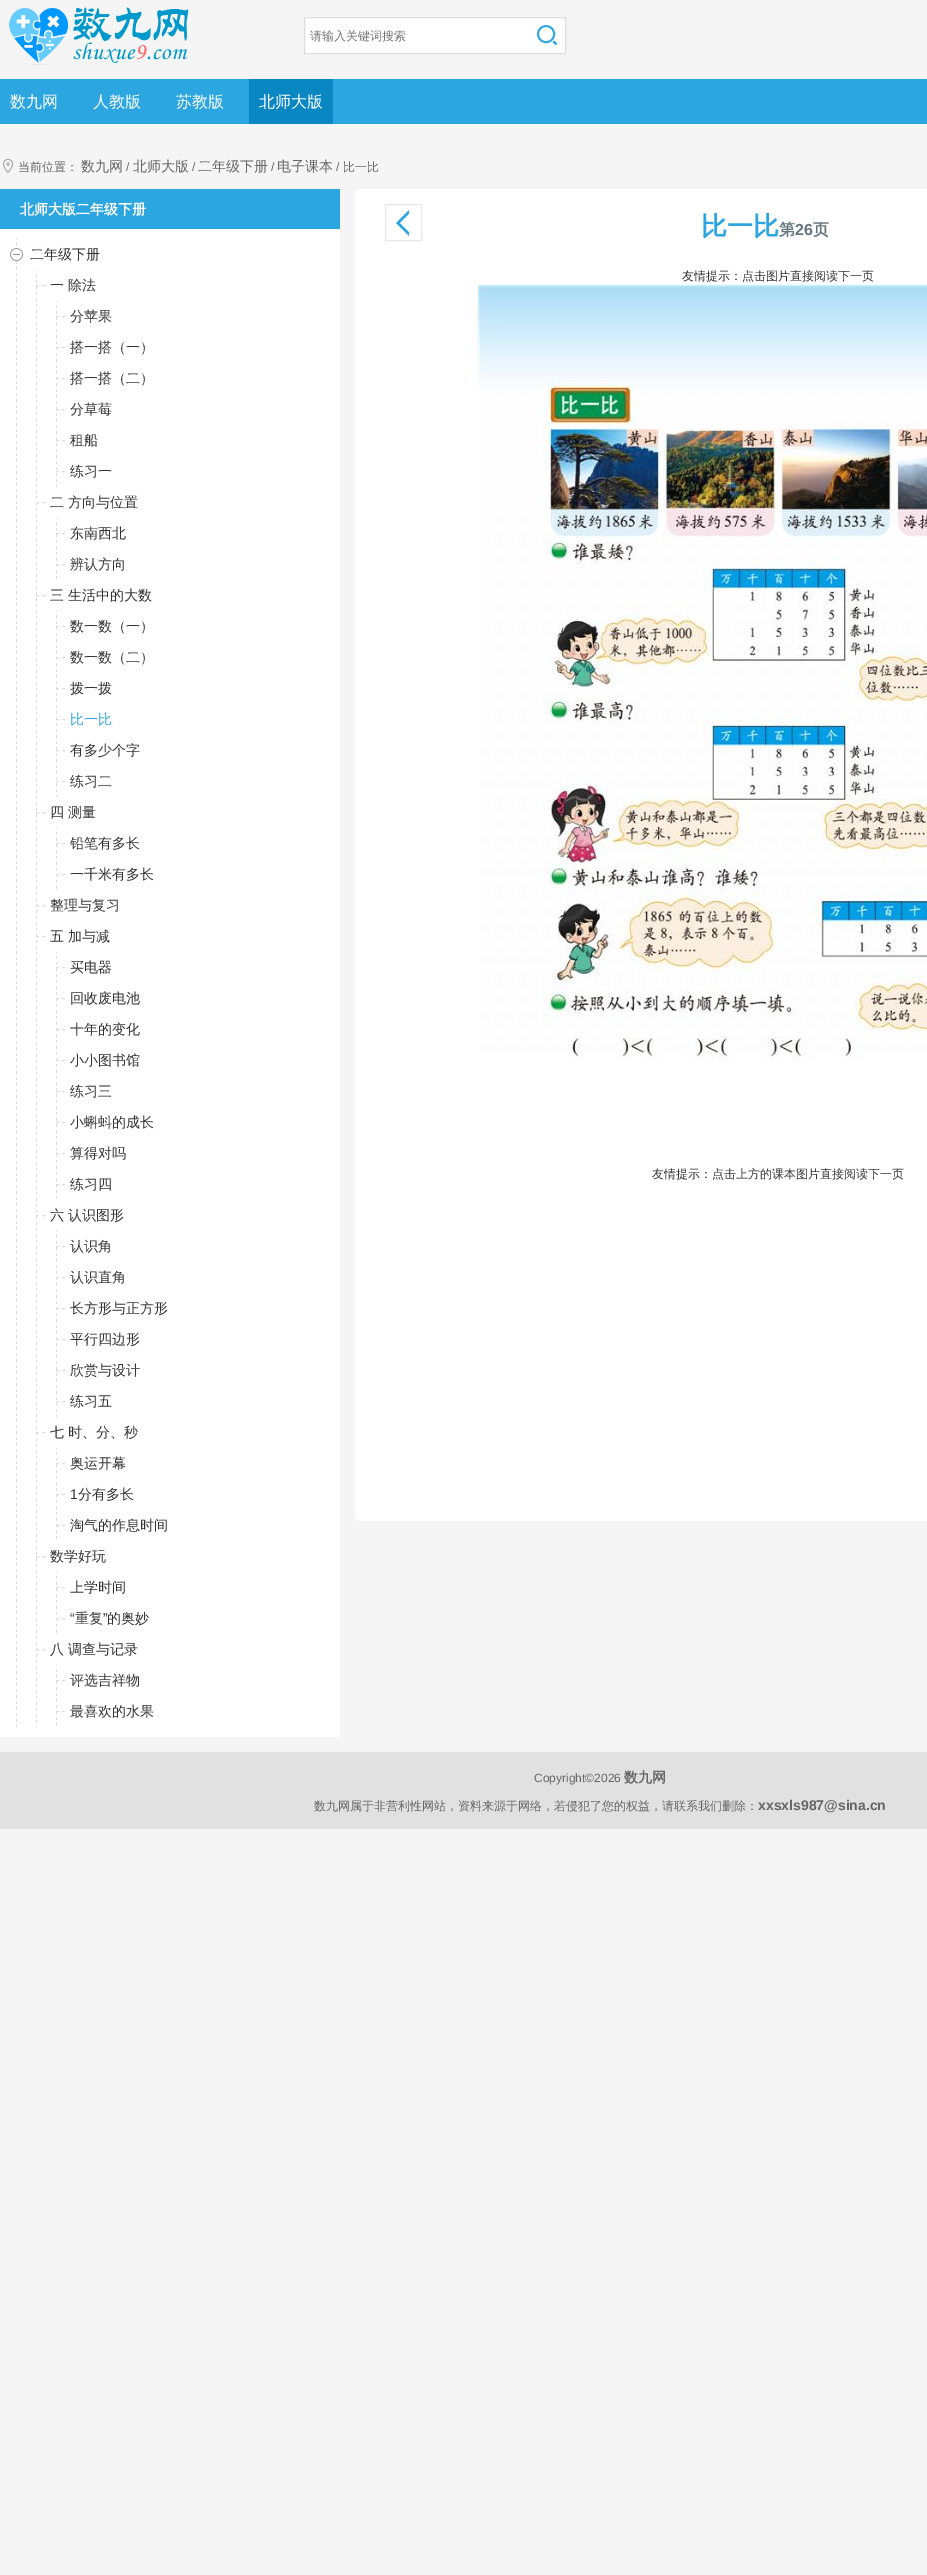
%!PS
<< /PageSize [927 2575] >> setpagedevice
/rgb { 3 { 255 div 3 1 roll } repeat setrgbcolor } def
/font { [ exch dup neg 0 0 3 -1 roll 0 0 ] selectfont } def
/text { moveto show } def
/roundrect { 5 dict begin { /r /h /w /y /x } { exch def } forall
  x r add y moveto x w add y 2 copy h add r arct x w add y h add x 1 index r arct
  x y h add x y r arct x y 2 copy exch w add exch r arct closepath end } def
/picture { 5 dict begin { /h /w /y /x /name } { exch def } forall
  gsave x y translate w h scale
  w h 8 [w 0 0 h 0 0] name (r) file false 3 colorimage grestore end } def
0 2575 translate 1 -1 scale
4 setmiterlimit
245 245 245 rgb
0 0 927 2575 rectfill
(img_01.rgb) 9 7 180 58 picture
255 255 255 rgb
304.5 17.5 moveto 261 0 rlineto 0 36 rlineto -261 0 rlineto closepath gsave fill grestore
222 222 222 rgb
stroke
(img_02.rgb) 537 25 20 20 picture
44 166 224 rgb
0 79 927 45 rectfill
9 135 195 rgb
249 79 84 45 rectfill
(img_03.rgb) 3 159 10 14 picture
44 166 224 rgb
0 189 340 40 rectfill
255 255 255 rgb
0 229 340 1508 rectfill
(img_04.rgb) 16 239 1 1488 picture
(img_05.rgb) 10 248 13 13 picture
(img_06.rgb) 36 270 1 1457 picture
220 220 220 rgb
36 285.5 moveto 3 0 rlineto 42 285.5 moveto 3 0 rlineto stroke
(img_07.rgb) 56 301 1 186 picture
56 316.5 moveto 3 0 rlineto 62 316.5 moveto 3 0 rlineto stroke
56 347.5 moveto 3 0 rlineto 62 347.5 moveto 3 0 rlineto stroke
56 378.5 moveto 3 0 rlineto 62 378.5 moveto 3 0 rlineto stroke
56 409.5 moveto 3 0 rlineto 62 409.5 moveto 3 0 rlineto stroke
56 440.5 moveto 3 0 rlineto 62 440.5 moveto 3 0 rlineto stroke
56 471.5 moveto 3 0 rlineto 62 471.5 moveto 3 0 rlineto stroke
36 502.5 moveto 3 0 rlineto 42 502.5 moveto 3 0 rlineto stroke
(img_08.rgb) 56 518 1 61 picture
56 533.5 moveto 3 0 rlineto 62 533.5 moveto 3 0 rlineto stroke
56 564.5 moveto 3 0 rlineto 62 564.5 moveto 3 0 rlineto stroke
36 595.5 moveto 3 0 rlineto 42 595.5 moveto 3 0 rlineto stroke
(img_07.rgb) 56 611 1 186 picture
56 626.5 moveto 3 0 rlineto 62 626.5 moveto 3 0 rlineto stroke
56 657.5 moveto 3 0 rlineto 62 657.5 moveto 3 0 rlineto stroke
56 688.5 moveto 3 0 rlineto 62 688.5 moveto 3 0 rlineto stroke
56 719.5 moveto 3 0 rlineto 62 719.5 moveto 3 0 rlineto stroke
56 750.5 moveto 3 0 rlineto 62 750.5 moveto 3 0 rlineto stroke
56 781.5 moveto 3 0 rlineto 62 781.5 moveto 3 0 rlineto stroke
36 812.5 moveto 3 0 rlineto 42 812.5 moveto 3 0 rlineto stroke
(img_08.rgb) 56 828 1 61 picture
56 843.5 moveto 3 0 rlineto 62 843.5 moveto 3 0 rlineto stroke
56 874.5 moveto 3 0 rlineto 62 874.5 moveto 3 0 rlineto stroke
36 905.5 moveto 3 0 rlineto 42 905.5 moveto 3 0 rlineto stroke
36 936.5 moveto 3 0 rlineto 42 936.5 moveto 3 0 rlineto stroke
(img_09.rgb) 56 952 1 247 picture
56 967.5 moveto 3 0 rlineto 62 967.5 moveto 3 0 rlineto stroke
56 998.5 moveto 3 0 rlineto 62 998.5 moveto 3 0 rlineto stroke
56 1029.5 moveto 3 0 rlineto 62 1029.5 moveto 3 0 rlineto stroke
56 1060.5 moveto 3 0 rlineto 62 1060.5 moveto 3 0 rlineto stroke
56 1091.5 moveto 3 0 rlineto 62 1091.5 moveto 3 0 rlineto stroke
56 1122.5 moveto 3 0 rlineto 62 1122.5 moveto 3 0 rlineto stroke
56 1153.5 moveto 3 0 rlineto 62 1153.5 moveto 3 0 rlineto stroke
56 1184.5 moveto 3 0 rlineto 62 1184.5 moveto 3 0 rlineto stroke
36 1215.5 moveto 3 0 rlineto 42 1215.5 moveto 3 0 rlineto stroke
(img_07.rgb) 56 1231 1 186 picture
56 1246.5 moveto 3 0 rlineto 62 1246.5 moveto 3 0 rlineto stroke
56 1277.5 moveto 3 0 rlineto 62 1277.5 moveto 3 0 rlineto stroke
56 1308.5 moveto 3 0 rlineto 62 1308.5 moveto 3 0 rlineto stroke
56 1339.5 moveto 3 0 rlineto 62 1339.5 moveto 3 0 rlineto stroke
56 1370.5 moveto 3 0 rlineto 62 1370.5 moveto 3 0 rlineto stroke
56 1401.5 moveto 3 0 rlineto 62 1401.5 moveto 3 0 rlineto stroke
36 1432.5 moveto 3 0 rlineto 42 1432.5 moveto 3 0 rlineto stroke
(img_10.rgb) 56 1448 1 91 picture
56 1463.5 moveto 3 0 rlineto 62 1463.5 moveto 3 0 rlineto stroke
56 1494.5 moveto 3 0 rlineto 62 1494.5 moveto 3 0 rlineto stroke
56 1525.5 moveto 3 0 rlineto 62 1525.5 moveto 3 0 rlineto stroke
36 1556.5 moveto 3 0 rlineto 42 1556.5 moveto 3 0 rlineto stroke
(img_08.rgb) 56 1572 1 61 picture
56 1587.5 moveto 3 0 rlineto 62 1587.5 moveto 3 0 rlineto stroke
56 1618.5 moveto 3 0 rlineto 62 1618.5 moveto 3 0 rlineto stroke
36 1649.5 moveto 3 0 rlineto 42 1649.5 moveto 3 0 rlineto stroke
(img_08.rgb) 56 1665 1 61 picture
56 1680.5 moveto 3 0 rlineto 62 1680.5 moveto 3 0 rlineto stroke
56 1711.5 moveto 3 0 rlineto 62 1711.5 moveto 3 0 rlineto stroke
255 255 255 rgb
355 189 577 1332 5 roundrect fill
232 232 232 rgb
385.5 204.5 36 36 rectstroke
44 166 224 rgb
409 210 moveto 0 26 rlineto -13 -13 rlineto closepath fill
255 255 255 rgb
413 210 moveto 0 26 rlineto -13 -13 rlineto closepath fill
(img_11.rgb) 478 285 449 776 picture
225 225 225 rgb
0 1752 927 77 rectfill
/WenQuanYiZenHei-Medium 12 font
117 117 117 rgb
(请输入关键词搜索) 310 40 text
/WenQuanYiZenHei-Medium 16 font
255 255 255 rgb
(数九网) 10 107 text
(人教版) 93 107 text
(苏教版) 176 107 text
(北师大版) 259 107 text
/WenQuanYiZenHei-Medium 12 font
102 102 102 rgb
(当前位置：) 18 171 text
/WenQuanYiZenHei-Medium 14 font
(数九网) 81 171 text
/LiberationSans-Regular 12 font
(/) 126 171 text
/WenQuanYiZenHei-Medium 14 font
(北师大版) 133 171 text
/LiberationSans-Regular 12 font
(/) 192 171 text
/WenQuanYiZenHei-Medium 14 font
(二年级下册) 198 171 text
/LiberationSans-Regular 12 font
(/) 271 171 text
/WenQuanYiZenHei-Medium 14 font
(电子课本) 277 171 text
/LiberationSans-Regular 12 font
(/) 336 171 text
/WenQuanYiZenHei-Medium 12 font
(比一比) 343 171 text
/WenQuanYiZenHei-Bold 14 font
255 255 255 rgb
(北师大版二年级下册) 20 214 text
/WenQuanYiZenHei-Medium 14 font
51 51 51 rgb
(二年级下册) 30 259 text
(一 除法) 50 290 text
(分苹果) 70 321 text
(搭一搭（一）) 70 352 text
(搭一搭（二）) 70 383 text
(分草莓) 70 414 text
(租船) 70 445 text
(练习一) 70 476 text
(二 方向与位置) 50 507 text
(东南西北) 70 538 text
(辨认方向) 70 569 text
(三 生活中的大数) 50 600 text
(数一数（一）) 70 631 text
(数一数（二）) 70 662 text
(拨一拨) 70 693 text
44 166 224 rgb
(比一比) 70 724 text
51 51 51 rgb
(有多少个字) 70 755 text
(练习二) 70 786 text
(四 测量) 50 817 text
(铅笔有多长) 70 848 text
(一千米有多长) 70 879 text
(整理与复习) 50 910 text
(五 加与减) 50 941 text
(买电器) 70 972 text
(回收废电池) 70 1003 text
(十年的变化) 70 1034 text
(小小图书馆) 70 1065 text
(练习三) 70 1096 text
(小蝌蚪的成长) 70 1127 text
(算得对吗) 70 1158 text
(练习四) 70 1189 text
(六 认识图形) 50 1220 text
(认识角) 70 1251 text
(认识直角) 70 1282 text
(长方形与正方形) 70 1313 text
(平行四边形) 70 1344 text
(欣赏与设计) 70 1375 text
(练习五) 70 1406 text
(七 时、分、秒) 50 1437 text
(奥运开幕) 70 1468 text
/LiberationSans-Regular 14 font
(1) 70 1499 text
/WenQuanYiZenHei-Medium 14 font
(分有多长) 78 1499 text
(淘气的作息时间) 70 1530 text
(数学好玩) 50 1561 text
(上学时间) 70 1592 text
/LiberationSans-Regular 14 font
(“) 70 1623 text
/WenQuanYiZenHei-Medium 14 font
(重复) 75 1623 text
/LiberationSans-Regular 14 font
(”) 103 1623 text
/WenQuanYiZenHei-Medium 14 font
(的奥妙) 107 1623 text
(八 调查与记录) 50 1654 text
(评选吉祥物) 70 1685 text
(最喜欢的水果) 70 1716 text
/WenQuanYiZenHei-Bold 26 font
44 166 224 rgb
(比一比) 701 235 text
/WenQuanYiZenHei-Bold 16 font
99 118 126 rgb
(第) 779 235 text
/LiberationSans-Bold 16 font
(26) 795 235 text
/WenQuanYiZenHei-Bold 16 font
(页) 813 235 text
/WenQuanYiZenHei-Medium 12 font
51 51 51 rgb
(友情提示：点击图片直接阅读下一页) 682 280 text
(友情提示：点击上方的课本图片直接阅读下一页) 652 1178 text
/LiberationSans-Regular 12 font
102 102 102 rgb
(Copyright©2026) 534 1782 text
/WenQuanYiZenHei-Bold 14 font
(数九网) 624 1782 text
/WenQuanYiZenHei-Medium 12 font
(数九网属于非营利性网站，资料来源于网络，若侵犯了您的权益，请联系我们删除：) 314 1810 text
/LiberationSans-Bold 14 font
(xxsxls987@sina.cn) 758 1810 text
showpage
